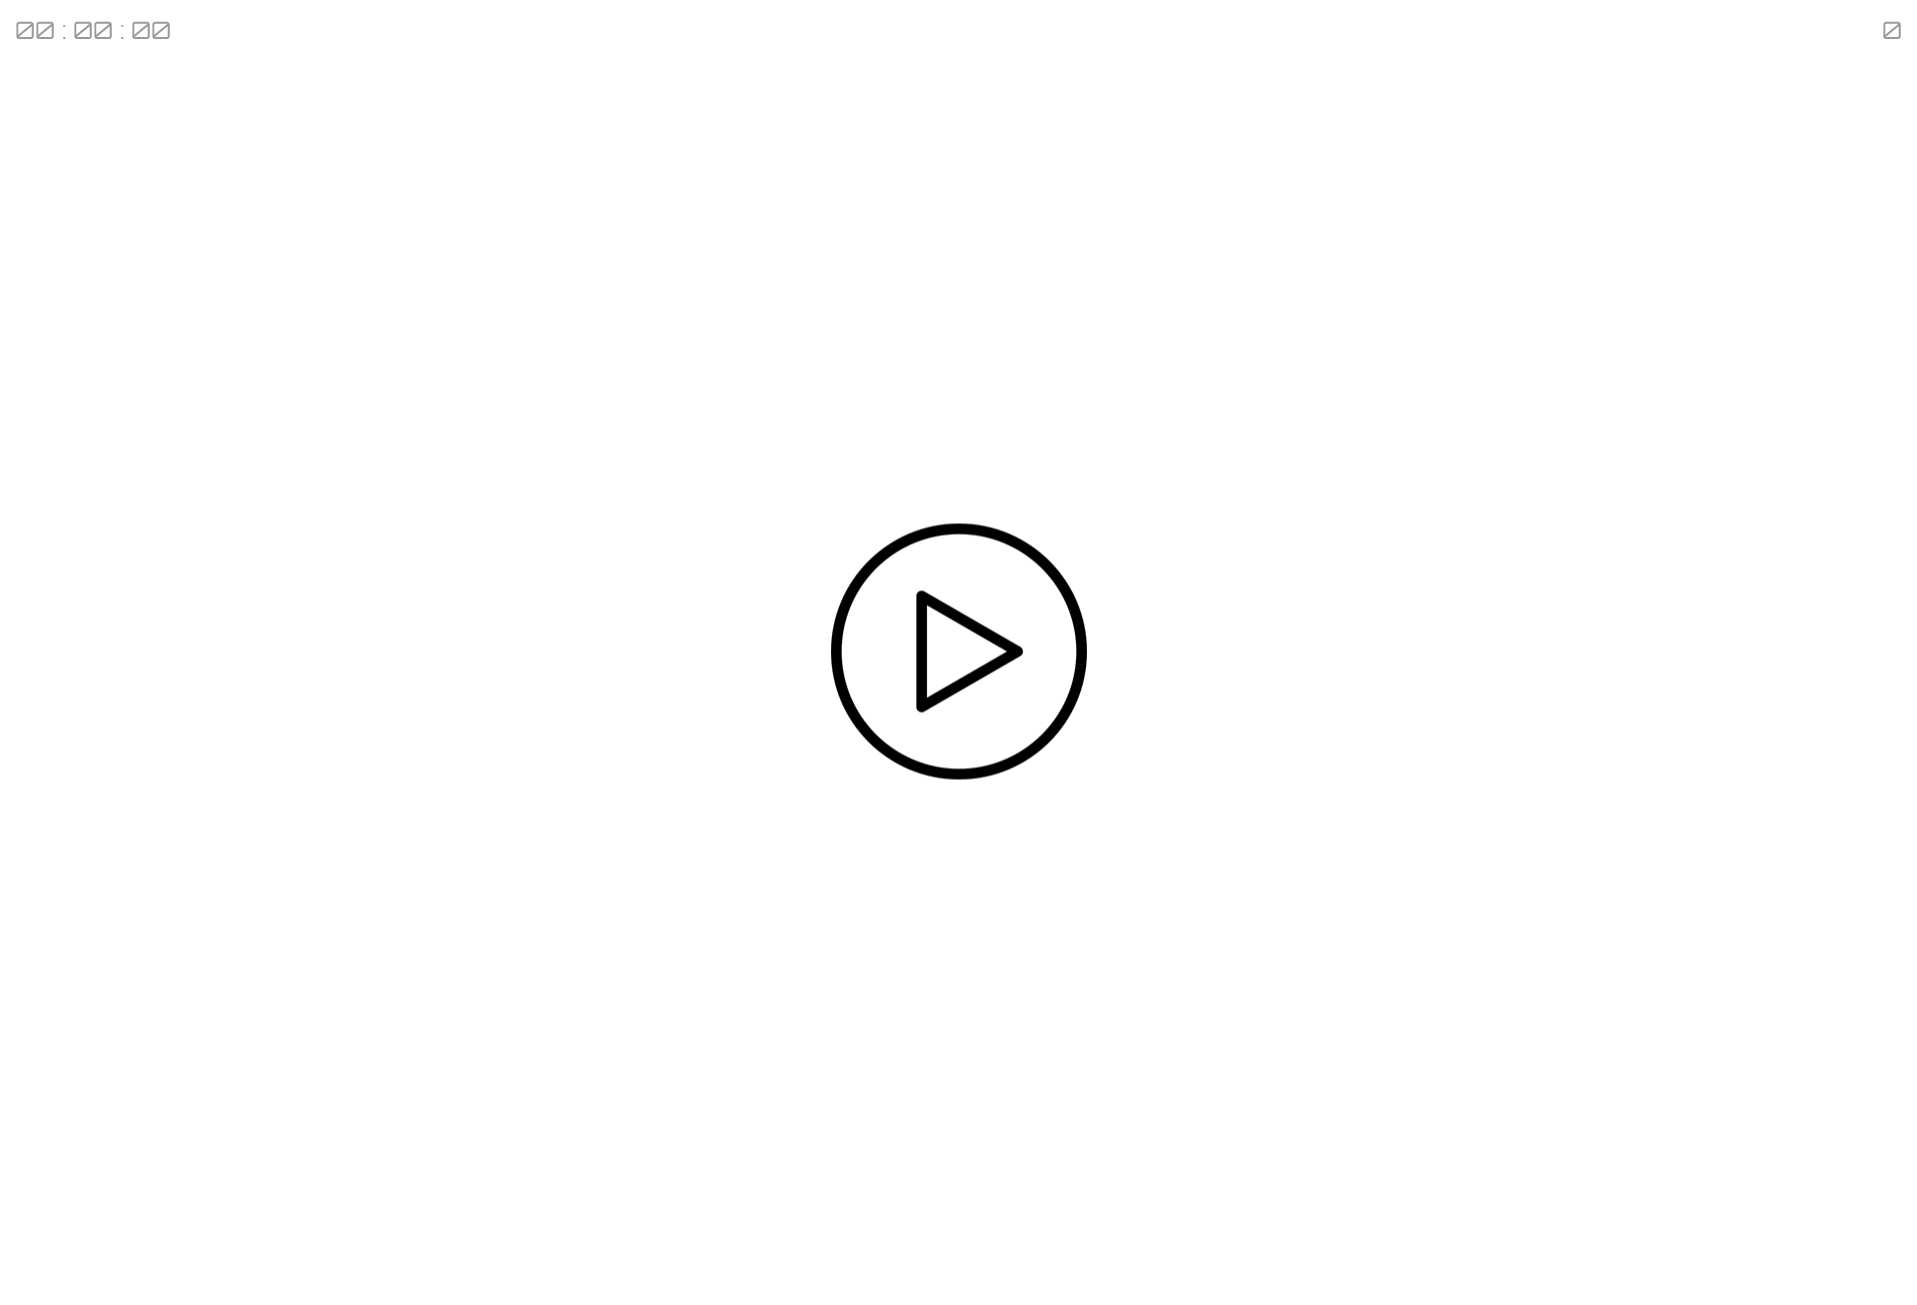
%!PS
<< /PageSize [1917 1305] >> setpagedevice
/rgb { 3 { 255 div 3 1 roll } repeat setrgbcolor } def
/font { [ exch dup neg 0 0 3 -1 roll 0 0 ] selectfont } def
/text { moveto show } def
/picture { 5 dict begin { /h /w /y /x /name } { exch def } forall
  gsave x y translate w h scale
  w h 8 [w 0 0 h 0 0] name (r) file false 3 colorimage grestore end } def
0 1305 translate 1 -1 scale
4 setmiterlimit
255 255 255 rgb
0 0 1917 1305 rectfill
(img_01.rgb) 831 523 256 257 picture
/Orbitron-Regular 24 font
153 153 153 rgb
(00 : 00 : 00) 15 39 text
(0) 1882 39 text
showpage
